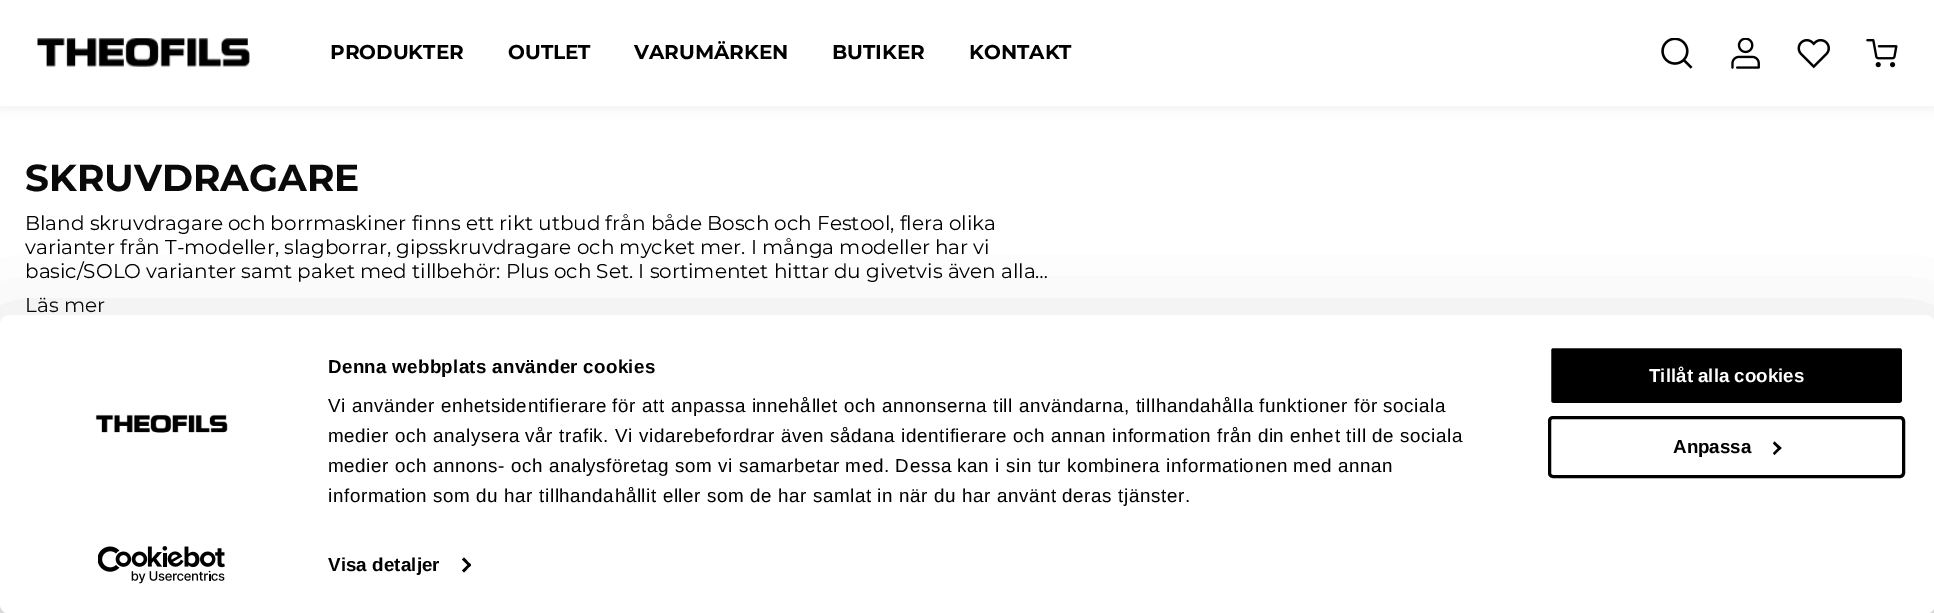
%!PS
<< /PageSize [1934 613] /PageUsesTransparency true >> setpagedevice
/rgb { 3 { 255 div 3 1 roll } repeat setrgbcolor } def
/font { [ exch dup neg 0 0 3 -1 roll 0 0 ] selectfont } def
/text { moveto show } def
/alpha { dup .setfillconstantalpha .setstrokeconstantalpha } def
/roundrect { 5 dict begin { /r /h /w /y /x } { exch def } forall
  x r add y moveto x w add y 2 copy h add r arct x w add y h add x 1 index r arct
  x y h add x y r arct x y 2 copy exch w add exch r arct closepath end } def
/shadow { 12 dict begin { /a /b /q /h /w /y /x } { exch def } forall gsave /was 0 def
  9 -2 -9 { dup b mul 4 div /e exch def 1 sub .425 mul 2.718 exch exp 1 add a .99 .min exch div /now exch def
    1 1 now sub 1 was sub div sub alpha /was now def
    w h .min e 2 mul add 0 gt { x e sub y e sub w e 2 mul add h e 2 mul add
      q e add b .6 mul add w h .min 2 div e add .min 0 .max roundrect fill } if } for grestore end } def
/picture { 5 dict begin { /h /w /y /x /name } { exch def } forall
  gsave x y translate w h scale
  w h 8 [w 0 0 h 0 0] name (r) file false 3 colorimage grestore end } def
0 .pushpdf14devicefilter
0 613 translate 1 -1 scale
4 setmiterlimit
255 255 255 rgb
0 0 1934 613 rectfill
0 0 0 rgb
0 3 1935 106 0 6 0.05 shadow
255 255 255 rgb
0 0 1934 106 rectfill
(img_01.rgb) 37 38 213 29 picture
(img_02.rgb) 1661 38 32 31 picture
(img_03.rgb) 1731 38 29 31 picture
(img_04.rgb) 1797 38 33 31 picture
(img_05.rgb) 1866 39 32 29 picture
0 0 0 rgb
0 353 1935 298 10 44 0.3 shadow
255 255 255 rgb
0 315 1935 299 10 roundrect fill
(img_06.rgb) 95 414 133 19 picture
(img_07.rgb) 98 546 127 38 picture
0 0 0 rgb
464 557.5 moveto 7 7.5 rlineto -1.5 2 rlineto -7.5 -7.5 rlineto closepath fill
469.5 563 moveto 1.5 2 rlineto -7 7.5 rlineto -2 -2 rlineto closepath fill
1549.5 346.5 354 58 3.5 roundrect gsave fill grestore
255 255 255 rgb
3 setlinewidth
stroke
0 0 0 rgb
1549.5 417.5 354 59 3.5 roundrect stroke
1774.5 441.5 moveto 7 6.5 rlineto -2 2 rlineto -6.5 -6.5 rlineto closepath fill
1779.5 446.5 moveto 2 1.5 rlineto -7 7 rlineto -1.5 -2 rlineto closepath fill
/Montserrat-Thin 20 font
(PRODUKTER) 330 59 text
(OUTLET) 508 59 text
(VARUMÄRKEN) 634 59 text
(BUTIKER) 832 59 text
(KONTAKT) 969 59 text
/Montserrat-Thin 37.5 font
10 10 10 rgb
(SKRUVDRAGARE) 25 191 text
/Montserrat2-Thin 20 font
0 0 0 rgb
(Bland skruvdragare och borrmaskiner finns ett rikt utbud från både Bosch och Festool, flera olika) 25 230 text
(varianter från T-modeller, slagborrar, gipsskruvdragare och mycket mer. I många modeller har vi) 25 254 text
(basic/SOLO varianter samt paket med tillbehör: Plus och Set. I sortimentet hittar du givetvis även alla…) 25 278 text
10 10 10 rgb
(Läs mer) 25 312 text
/LiberationSans-Bold 18.75 font
0 0 0 rgb
328 373 moveto 0.3 0 (Denna webbplats använder cookies) ashow
/LiberationSans-Regular 18.75 font
328 412 moveto 0.62 0 (Vi använder enhetsidentifierare för att anpassa innehållet och annonserna till användarna, tillhandahålla funktioner för sociala) ashow
328 442 moveto 0.62 0 (medier och analysera vår trafik. Vi vidarebefordrar även sådana identifierare och annan information från din enhet till de sociala) ashow
328 472 moveto 0.62 0 (medier och annons- och analysföretag som vi samarbetar med. Dessa kan i sin tur kombinera informationen med annan) ashow
328 502 moveto 0.62 0 (information som du har tillhandahållit eller som de har samlat in när du har använt deras tjänster.) ashow
/LiberationSans-Bold 18.75 font
328 571 moveto 0.1 0 (Visa detaljer) ashow
255 255 255 rgb
(Tillåt alla cookies) 1649 382 text
0 0 0 rgb
(Anpassa) 1673 453 text
.poppdf14devicefilter showpage
